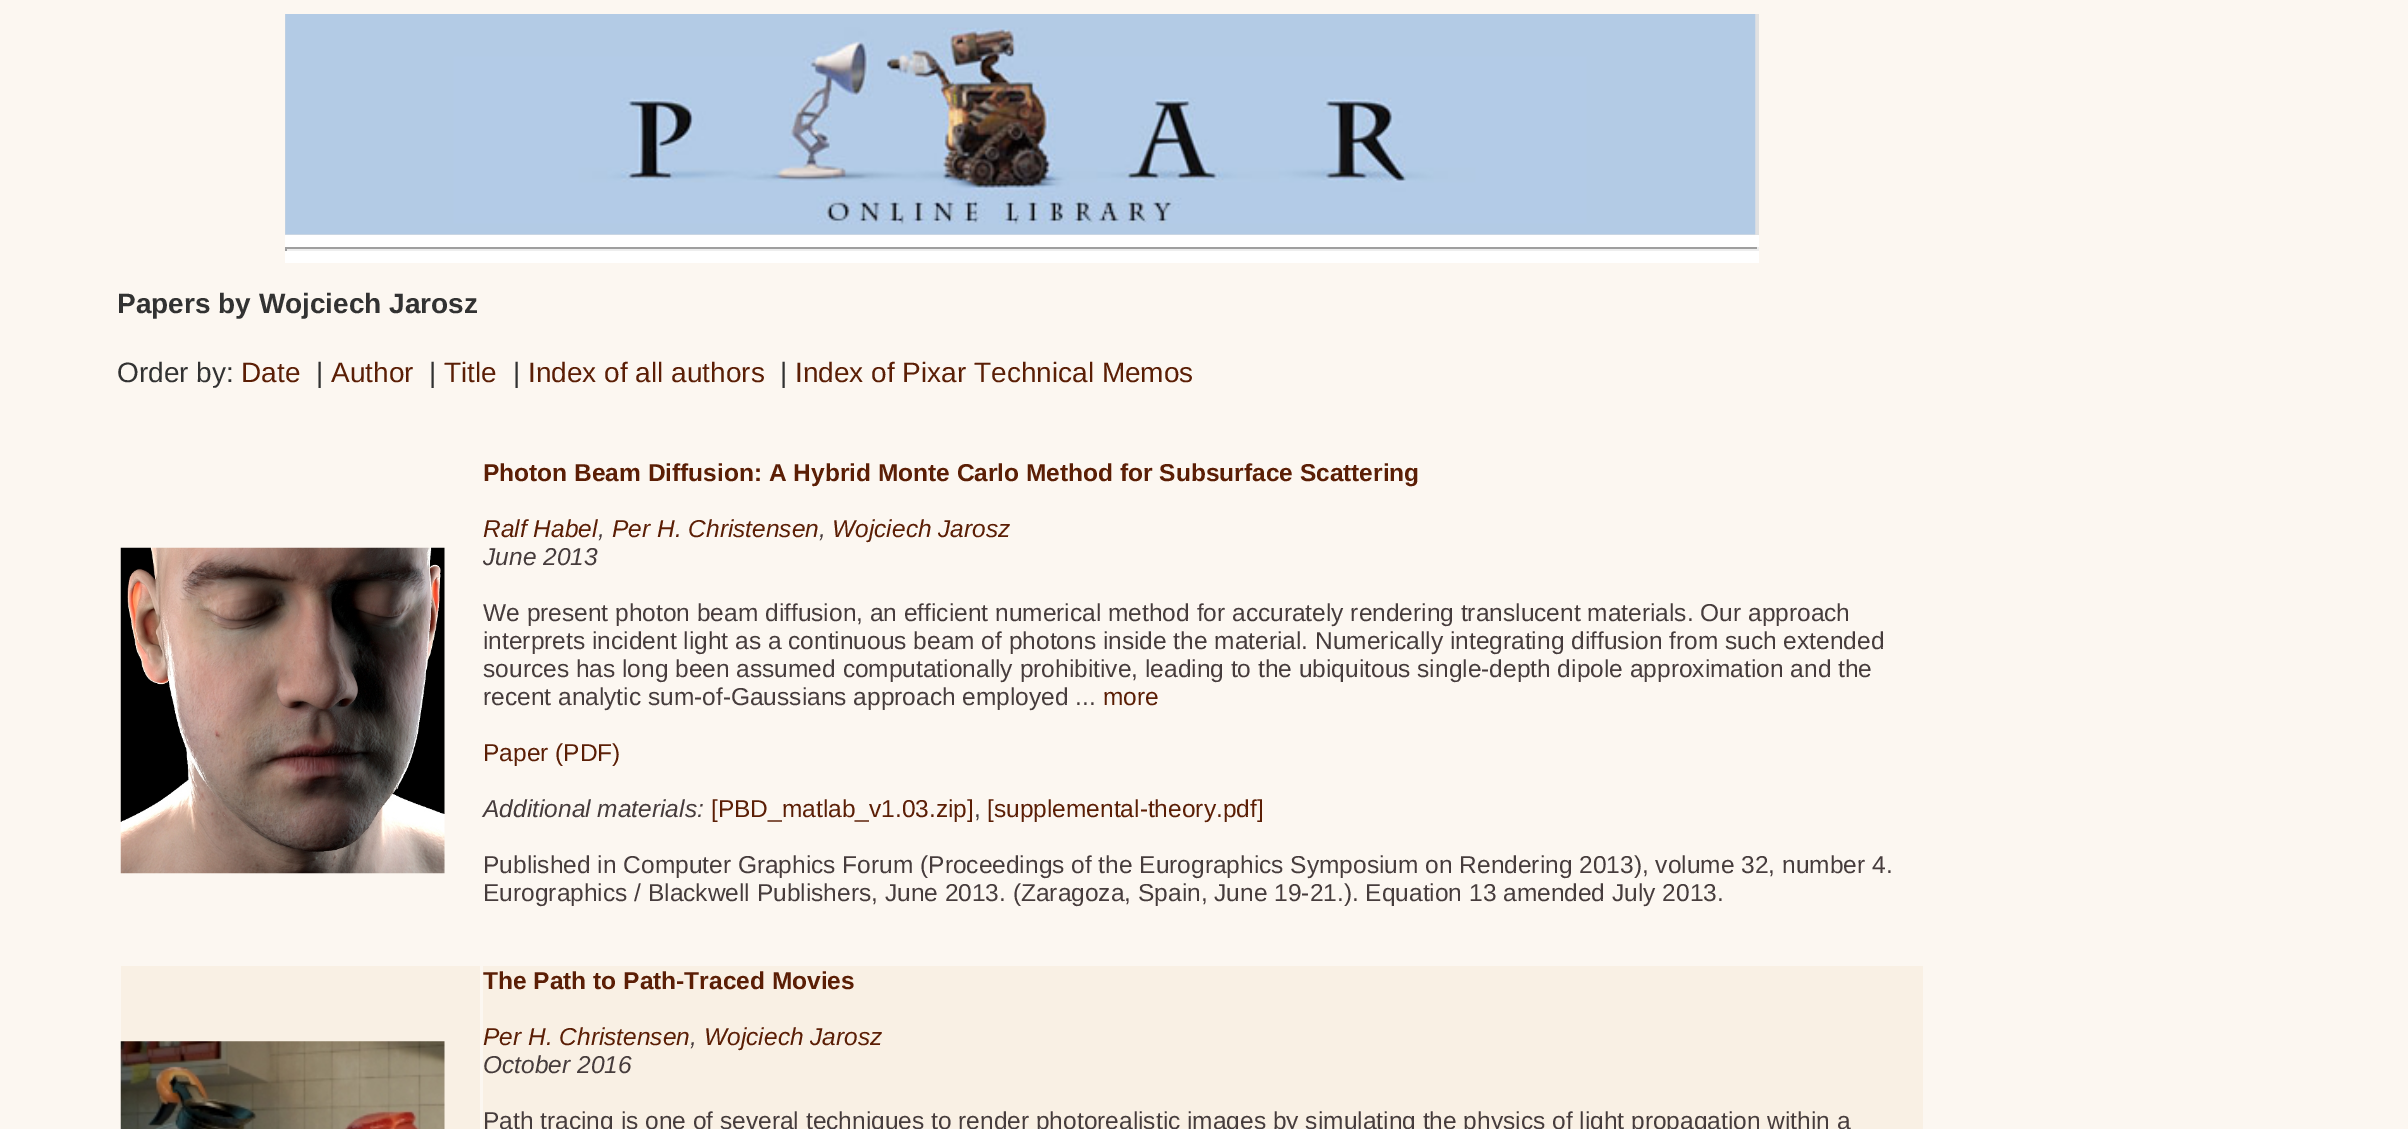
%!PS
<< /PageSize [2408 1129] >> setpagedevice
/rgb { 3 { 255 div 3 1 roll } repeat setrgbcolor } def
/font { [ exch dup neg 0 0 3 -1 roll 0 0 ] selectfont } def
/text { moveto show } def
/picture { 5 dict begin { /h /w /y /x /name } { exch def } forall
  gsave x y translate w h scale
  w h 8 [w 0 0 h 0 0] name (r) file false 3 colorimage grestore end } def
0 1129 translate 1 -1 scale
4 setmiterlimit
252 247 241 rgb
0 0 2408 1129 rectfill
225 225 225 rgb
285 14 1474 221 rectfill
(img_01.rgb) 285 14 1471 221 picture
255 255 255 rgb
285 235 1474 28 rectfill
159 159 159 rgb
285 247 1474 2 rectfill
238 238 238 rgb
1757 247 2 4 rectfill
285 249 1474 2 rectfill
159 159 159 rgb
285 247 2 4 rectfill
(img_02.rgb) 120 547 325 327 picture
249 240 228 rgb
121 966 359 163 rectfill
(img_03.rgb) 120 1041 325 88 picture
483 966 1440 163 rectfill
/LiberationSans-Bold 28 font
50 50 50 rgb
(Papers by Wojciech Jarosz) 117 313 text
/LiberationSans-Regular 28 font
(Order by:) 117 382 text
91 30 5 rgb
(Date) 241 382 text
50 50 50 rgb
(|) 316 382 text
91 30 5 rgb
(Author) 331 382 text
50 50 50 rgb
(|) 429 382 text
91 30 5 rgb
(Title) 444 382 text
50 50 50 rgb
(|) 513 382 text
91 30 5 rgb
(Index of all authors) 528 382 text
50 50 50 rgb
(|) 780 382 text
91 30 5 rgb
(Index of Pixar Technical Memos) 795 382 text
/LiberationSans-Bold 24.5 font
(Photon Beam Diffusion: A Hybrid Monte Carlo Method for Subsurface Scattering) 483 481 text
/LiberationSans-Italic 24.5 font
(Ralf Habel) 483 537 text
70 60 60 rgb
(,) 598 537 text
91 30 5 rgb
(Per H. Christensen) 612 537 text
70 60 60 rgb
(,) 819 537 text
91 30 5 rgb
(Wojciech Jarosz) 832 537 text
70 60 60 rgb
(June 2013) 483 565 text
/LiberationSans-Regular 24.5 font
(We present photon beam diffusion, an efficient numerical method for accurately rendering translucent materials. Our approach) 483 621 text
(interprets incident light as a continuous beam of photons inside the material. Numerically integrating diffusion from such extended) 483 649 text
(sources has long been assumed computationally prohibitive, leading to the ubiquitous single-depth dipole approximation and the) 483 677 text
(recent analytic sum-of-Gaussians approach employed ...) 483 705 text
91 30 5 rgb
(more) 1103 705 text
(Paper \(PDF\)) 483 761 text
/LiberationSans-Italic 24.5 font
70 60 60 rgb
(Additional materials:) 483 817 text
/LiberationSans-Regular 24.5 font
91 30 5 rgb
([PBD_matlab_v1.03.zip]) 711 817 text
70 60 60 rgb
(,) 974 817 text
91 30 5 rgb
([supplemental-theory.pdf]) 987 817 text
70 60 60 rgb
(Published in Computer Graphics Forum \(Proceedings of the Eurographics Symposium on Rendering 2013\), volume 32, number 4.) 483 873 text
(Eurographics / Blackwell Publishers, June 2013. \(Zaragoza, Spain, June 19-21.\). Equation 13 amended July 2013.) 483 901 text
/LiberationSans-Bold 24.5 font
91 30 5 rgb
(The Path to Path-Traced Movies) 483 989 text
/LiberationSans-Italic 24.5 font
(Per H. Christensen) 483 1045 text
70 60 60 rgb
(,) 690 1045 text
91 30 5 rgb
(Wojciech Jarosz) 704 1045 text
70 60 60 rgb
(October 2016) 483 1073 text
/LiberationSans-Regular 24.5 font
(Path tracing is one of several techniques to render photorealistic images by simulating the physics of light propagation within a) 483 1129 text
showpage
